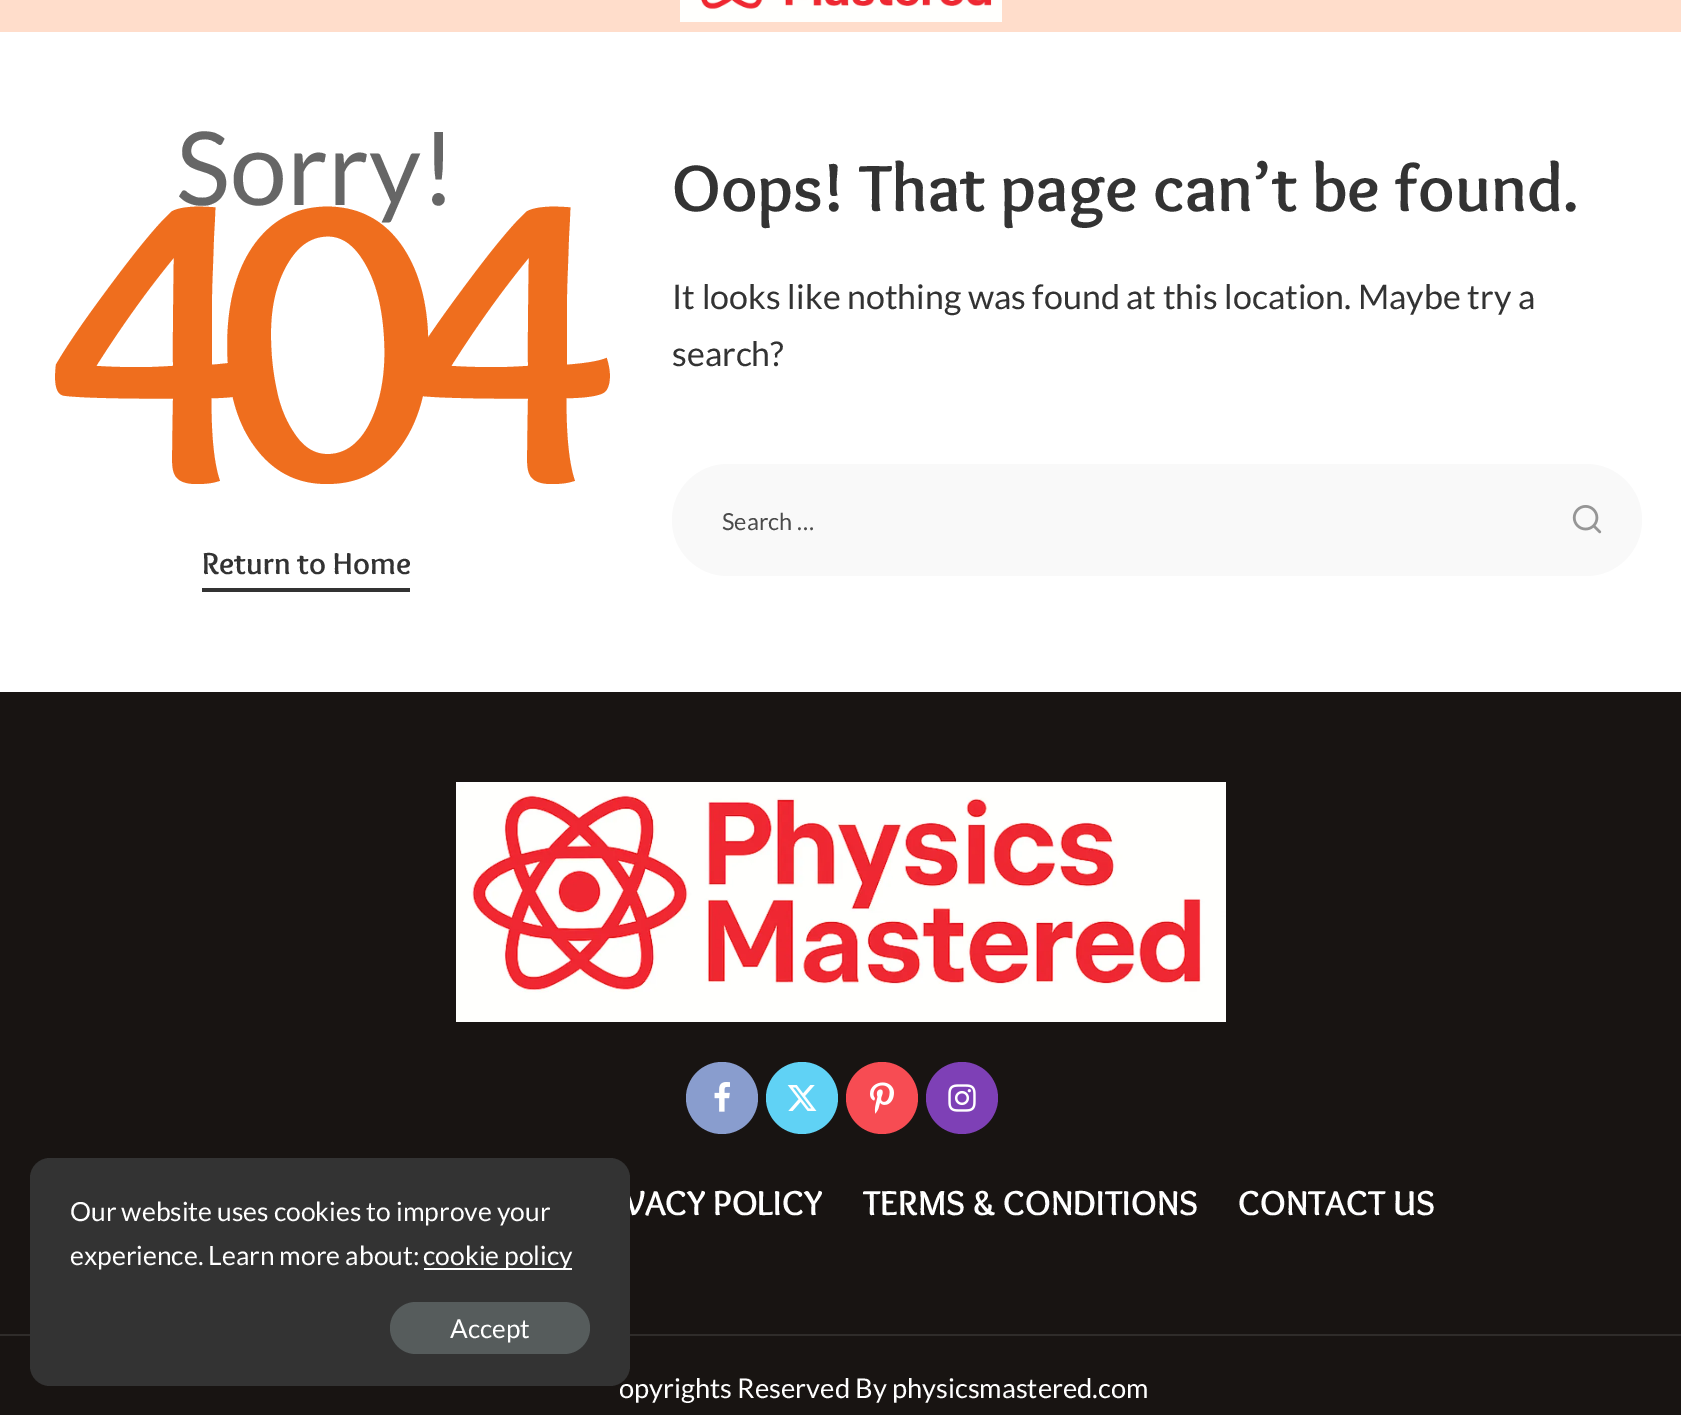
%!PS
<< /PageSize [1681 1415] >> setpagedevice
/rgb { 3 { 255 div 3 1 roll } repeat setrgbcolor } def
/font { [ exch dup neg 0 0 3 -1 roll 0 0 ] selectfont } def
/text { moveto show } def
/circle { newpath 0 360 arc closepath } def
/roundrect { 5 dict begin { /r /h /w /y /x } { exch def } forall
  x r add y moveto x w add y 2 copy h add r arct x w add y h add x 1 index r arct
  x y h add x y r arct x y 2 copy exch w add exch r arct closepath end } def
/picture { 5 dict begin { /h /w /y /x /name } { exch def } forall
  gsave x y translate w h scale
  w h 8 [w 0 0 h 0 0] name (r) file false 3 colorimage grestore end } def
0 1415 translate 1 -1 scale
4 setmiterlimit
255 255 255 rgb
0 0 1681 1415 rectfill
255 221 203 rgb
0 0 1681 32 rectfill
(img_01.rgb) 680 0 322 22 picture
51 51 51 rgb
202 588 208 4 rectfill
249 249 249 rgb
672 464 970 112 56 roundrect fill
(img_02.rgb) 1572 505 30 29 picture
24 20 18 rgb
0 692 1681 723 rectfill
(img_03.rgb) 456 782 770 240 picture
137 157 206 rgb
722 1098 36 circle fill
(img_04.rgb) 714 1082 16 30 picture
96 210 245 rgb
802 1098 36 circle fill
(img_05.rgb) 787 1085 30 26 picture
247 76 83 rgb
882 1098 36 circle fill
(img_06.rgb) 870 1082 24 32 picture
126 64 182 rgb
962 1098 36 circle fill
(img_07.rgb) 948 1084 28 28 picture
47 44 42 rgb
0 1334 1681 2 rectfill
/Lato-Regular 102 font
102 102 102 rgb
(Sorry!) 176 205 text
/Overlock-Bold 408 font
239 110 30 rgb
40 480 moveto -41 0 (404) ashow
/Overlock-Bold 31.5 font
51 51 51 rgb
(Return to Home) 202 574 text
/Overlock-Bold 68 font
(Oops! That page can’t be found.) 672 211 text
/Lato-Regular 34 font
(It looks like nothing was found at this location. Maybe try a) 672 309 text
(search?) 672 366 text
/Lato-Regular 23.5 font
75 75 75 rgb
(Search …) 722 530 text
/Overlock-Bold 36 font
255 255 255 rgb
(VACY POLICY) 624 1215 text
(TERMS & CONDITIONS) 863 1215 text
(CONTACT US) 1238 1215 text
/Lato-Regular 27.25 font
(opyrights Reserved By physicsmastered.com) 619 1398 text
51 51 51 rgb
30 1158 600 228 20 roundrect fill
/Lato-Regular 26.4 font
255 255 255 rgb
(Our website uses cookies to improve your) 70 1221 text
(experience. Learn more about:) 70 1265 text
424 1268 148 2 rectfill
(cookie policy) 423 1265 text
86 92 92 rgb
390 1302 200 52 26 roundrect fill
/Lato-Regular 26 font
255 255 255 rgb
(Accept) 450 1338 text
showpage
